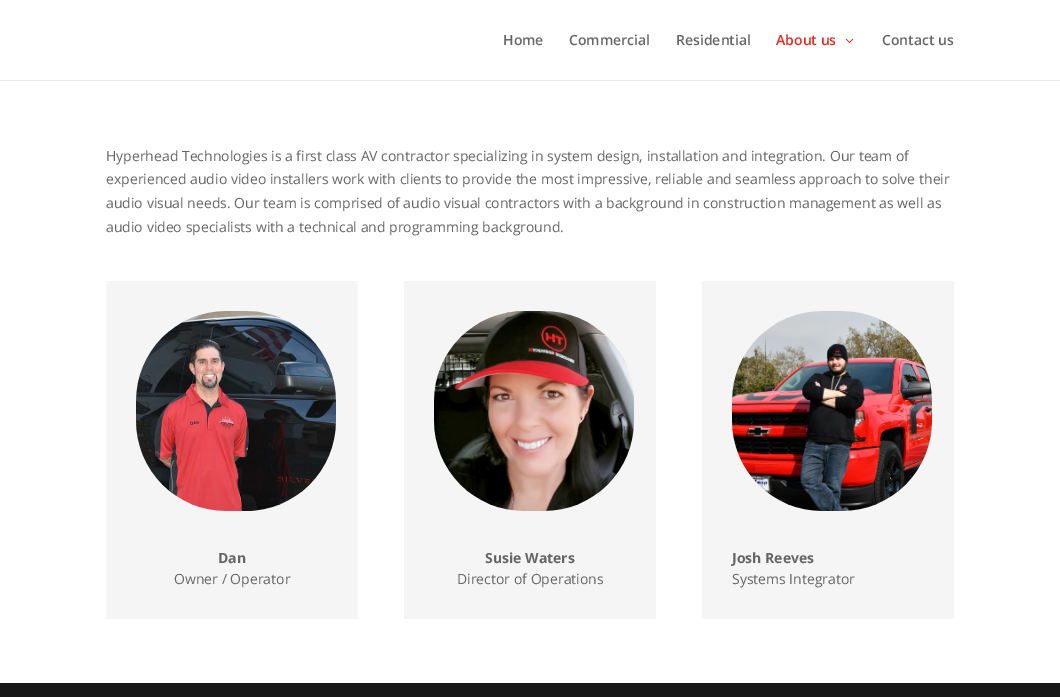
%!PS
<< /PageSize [1060 697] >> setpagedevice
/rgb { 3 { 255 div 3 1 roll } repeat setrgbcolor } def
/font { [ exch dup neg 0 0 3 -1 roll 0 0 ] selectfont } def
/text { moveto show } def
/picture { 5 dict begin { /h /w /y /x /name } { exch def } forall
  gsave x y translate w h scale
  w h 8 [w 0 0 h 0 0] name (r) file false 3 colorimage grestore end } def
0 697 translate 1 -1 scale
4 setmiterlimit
255 255 255 rgb
0 0 1060 697 rectfill
230 230 230 rgb
0 80 1060 1 rectfill
(img_01.rgb) 845 38 9 5 picture
245 245 245 rgb
106 281 252 338 rectfill
(img_02.rgb) 136 311 200 200 picture
404 281 252 338 rectfill
(img_03.rgb) 434 311 200 200 picture
702 281 252 338 rectfill
(img_04.rgb) 732 311 200 200 picture
23 23 23 rgb
0 683 1060 14 rectfill
/OpenSans-SemiBold 14 font
102 102 102 rgb
(Home) 503 45 text
(Commercial) 569 45 text
(Residential) 676 45 text
224 43 32 rgb
(About us) 776 45 text
102 102 102 rgb
(Contact us) 882 45 text
/OpenSans-Regular 14 font
(Hyperhead Technologies is a first class AV contractor specializing in system design, installation and integration. Our team of) 106 161 text
(experienced audio video installers work with clients to provide the most impressive, reliable and seamless approach to solve their) 106 184 text
(audio visual needs. Our team is comprised of audio visual contractors with a background in construction management as well as) 106 208 text
(audio video specialists with a technical and programming background.) 106 232 text
/OpenSans-Bold 14 font
(Dan) 218 563 text
/OpenSans-Regular 14 font
(Owner / Operator) 174 584 text
/OpenSans-Bold 14 font
(Susie Waters) 485 563 text
/OpenSans-Regular 14 font
(Director of Operations) 457 584 text
/OpenSans-Bold 14 font
(Josh Reeves) 732 563 text
/OpenSans-Regular 14 font
(Systems Integrator) 732 584 text
showpage
